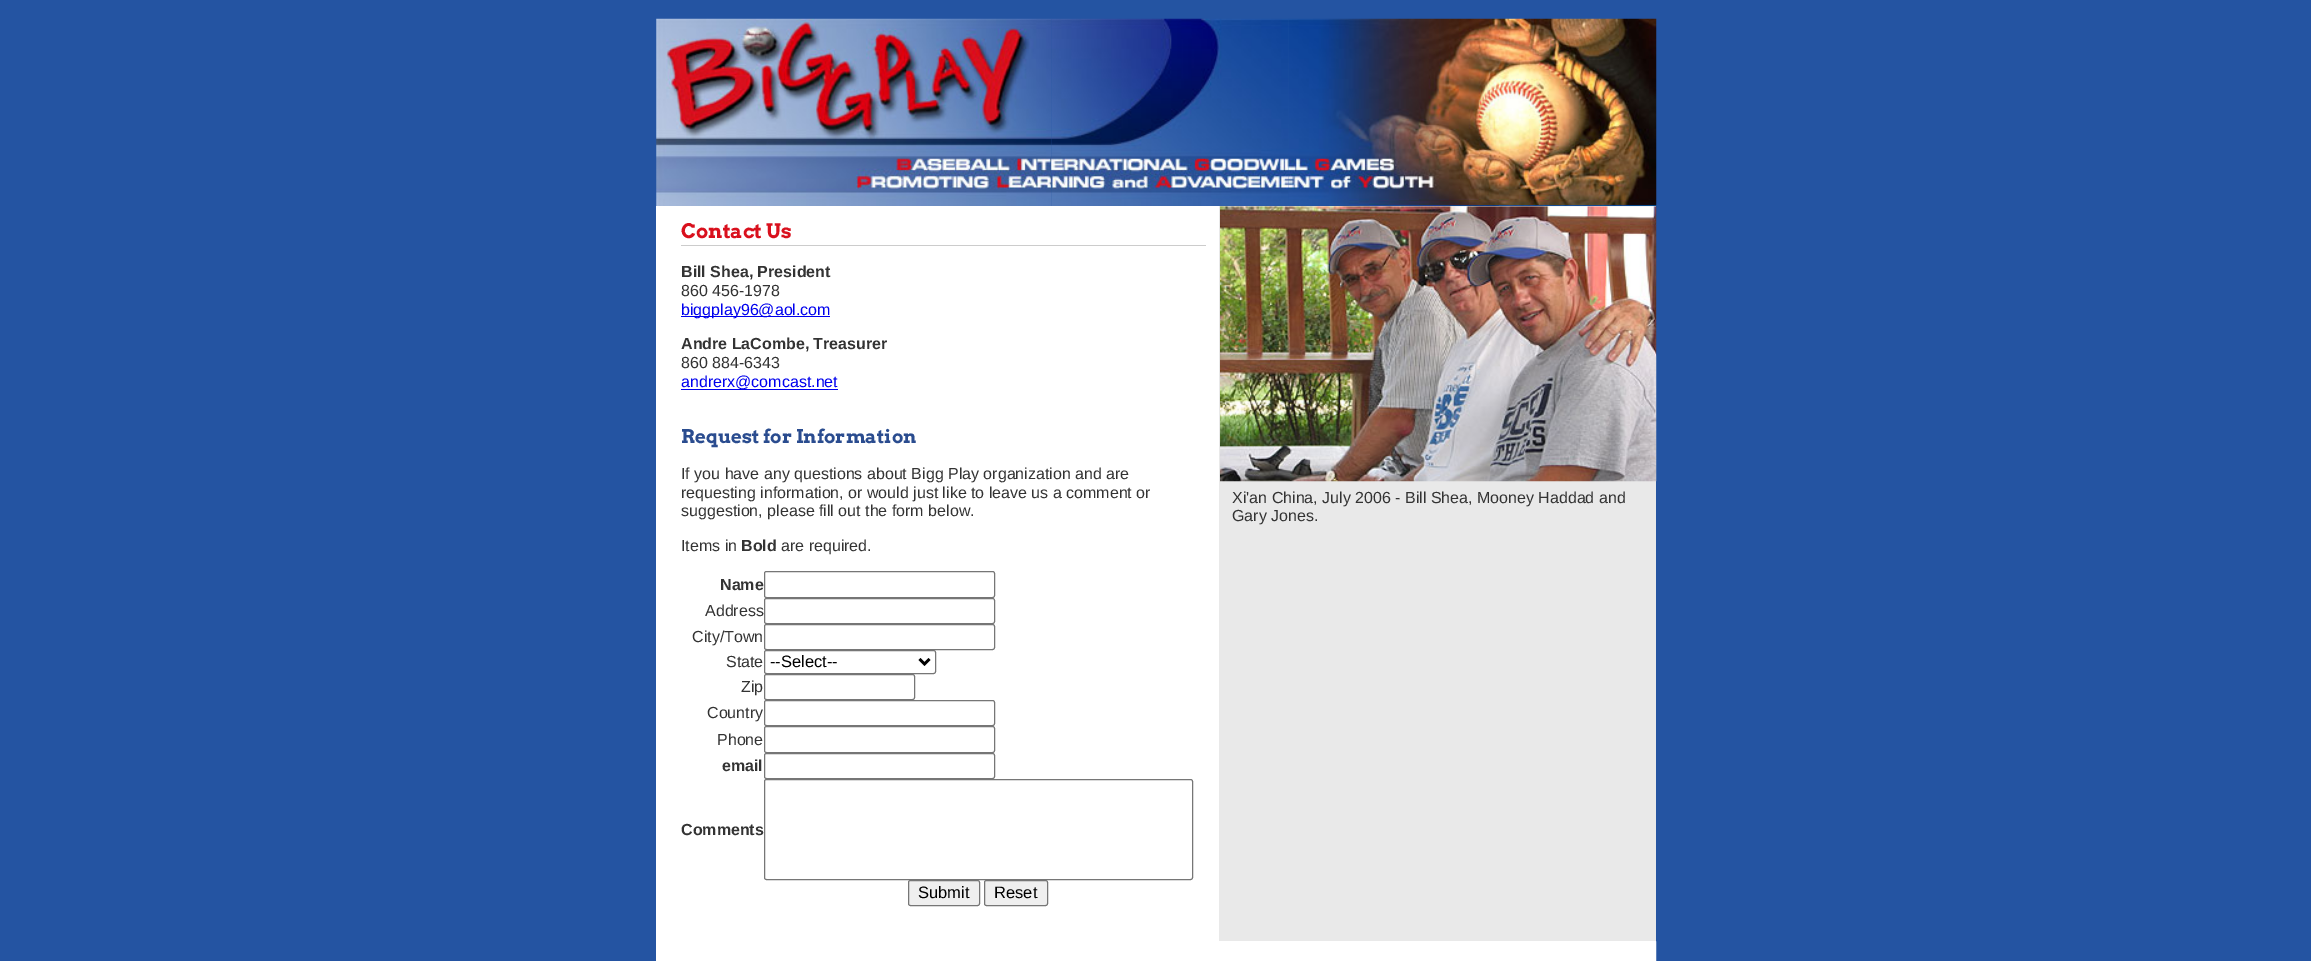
%!PS
<< /PageSize [2311 961] >> setpagedevice
/rgb { 3 { 255 div 3 1 roll } repeat setrgbcolor } def
/font { [ exch dup neg 0 0 3 -1 roll 0 0 ] selectfont } def
/text { moveto show } def
/roundrect { 5 dict begin { /r /h /w /y /x } { exch def } forall
  x r add y moveto x w add y 2 copy h add r arct x w add y h add x 1 index r arct
  x y h add x y r arct x y 2 copy exch w add exch r arct closepath end } def
/picture { 5 dict begin { /h /w /y /x /name } { exch def } forall
  gsave x y translate w h scale
  w h 8 [w 0 0 h 0 0] name (r) file false 3 colorimage grestore end } def
0 961 translate 1 -1 scale
4 setmiterlimit
36 84 162 rgb
0 0 2311 961 rectfill
(img_01.rgb) 656 18 396 188 picture
(img_02.rgb) 1051 18 238 188 picture
(img_03.rgb) 1288 18 369 189 picture
255 255 255 rgb
656 206 563 735 rectfill
204 204 204 rgb
681 245 525 1 rectfill
0 0 238 rgb
681 316 149 1 rectfill
681 389 157 1 rectfill
118 118 118 rgb
764.5 571.5 230 26 2 roundrect stroke
764.5 598.5 230 25 2 roundrect stroke
764.5 624.5 230 25 2 roundrect stroke
764.5 650.5 171 23 2 roundrect stroke
0 0 0 rgb
2.5 setlinewidth
919.5 659 moveto 5 5 rlineto 5 -5 rlineto stroke
118 118 118 rgb
1 setlinewidth
764.5 674.5 150 25 2 roundrect stroke
764.5 700.5 230 25 2 roundrect stroke
764.5 726.5 230 26 2 roundrect stroke
764.5 753.5 230 25 2 roundrect stroke
764.5 779.5 428 100 2 roundrect stroke
239 239 239 rgb
908.5 880.5 71 25 2 roundrect gsave fill grestore
118 118 118 rgb
stroke
239 239 239 rgb
984.5 880.5 63 25 2 roundrect gsave fill grestore
118 118 118 rgb
stroke
233 233 233 rgb
1219 206 437 735 rectfill
(img_04.rgb) 1220 206 437 276 picture
255 255 255 rgb
656 941 1000 20 rectfill
(img_05.rgb) 1656 941 1 20 picture
/Arvo-Bold 20 font
217 16 29 rgb
(Contact Us) 681 238 text
/LiberationSans-Bold 16 font
51 51 51 rgb
(Bill Shea, President) 681 277 text
/LiberationSans-Regular 16 font
(860 456-1978) 681 296 text
0 0 238 rgb
(biggplay96@aol.com) 681 315 text
/LiberationSans-Bold 16 font
51 51 51 rgb
(Andre LaCombe, Treasurer) 681 349 text
/LiberationSans-Regular 16 font
(860 884-6343) 681 368 text
0 0 238 rgb
(andrerx@comcast.net) 681 387 text
/Arvo-Bold 18.75 font
42 76 143 rgb
(Request for Information) 681 443 text
/LiberationSans-Regular 16 font
51 51 51 rgb
(If you have any questions about Bigg Play organization and are) 681 479 text
(requesting information, or would just like to leave us a comment or) 681 498 text
(suggestion, please fill out the form below.) 681 516 text
(Items in) 681 551 text
/LiberationSans-Bold 16 font
(Bold) 741 551 text
/LiberationSans-Regular 16 font
(are required.) 781 551 text
/LiberationSans-Bold 16 font
(Name) 720 590 text
/LiberationSans-Regular 16 font
(Address) 705 616 text
(City/Town) 692 642 text
(State) 726 667 text
/LiberationSans-Regular 16.5 font
0 0 0 rgb
(--Select--) 770 667 text
/LiberationSans-Regular 16 font
51 51 51 rgb
(Zip) 741 692 text
(Country) 707 718 text
(Phone) 717 745 text
/LiberationSans-Bold 16 font
(email) 722 771 text
(Comments) 681 835 text
/LiberationSans-Regular 16.5 font
0 0 0 rgb
(Submit) 918 898 text
(Reset) 994 898 text
/LiberationSans-Regular 16 font
51 51 51 rgb
(Xi'an China, July 2006 - Bill Shea, Mooney Haddad and) 1232 503 text
(Gary Jones.) 1232 521 text
showpage
